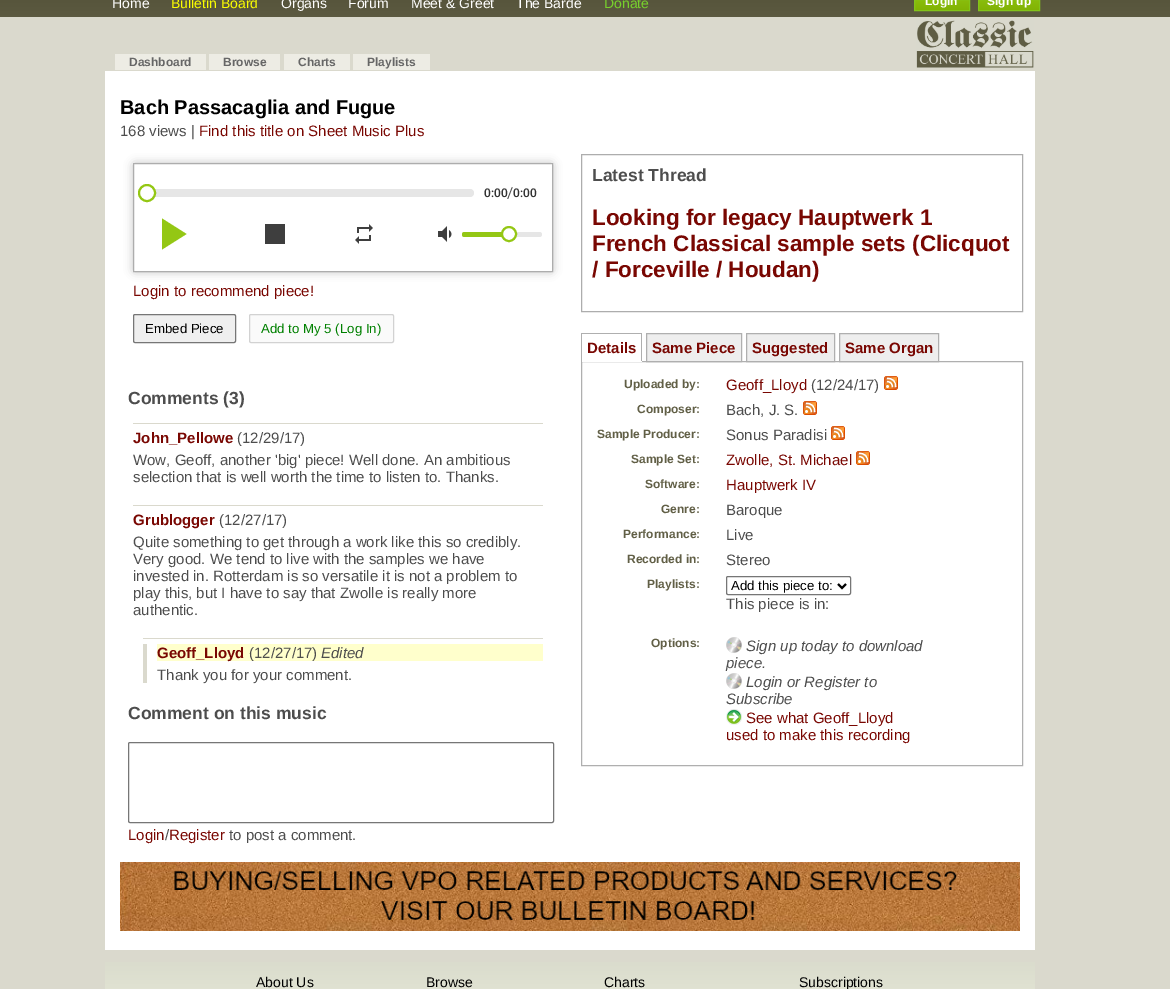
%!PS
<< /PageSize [1170 989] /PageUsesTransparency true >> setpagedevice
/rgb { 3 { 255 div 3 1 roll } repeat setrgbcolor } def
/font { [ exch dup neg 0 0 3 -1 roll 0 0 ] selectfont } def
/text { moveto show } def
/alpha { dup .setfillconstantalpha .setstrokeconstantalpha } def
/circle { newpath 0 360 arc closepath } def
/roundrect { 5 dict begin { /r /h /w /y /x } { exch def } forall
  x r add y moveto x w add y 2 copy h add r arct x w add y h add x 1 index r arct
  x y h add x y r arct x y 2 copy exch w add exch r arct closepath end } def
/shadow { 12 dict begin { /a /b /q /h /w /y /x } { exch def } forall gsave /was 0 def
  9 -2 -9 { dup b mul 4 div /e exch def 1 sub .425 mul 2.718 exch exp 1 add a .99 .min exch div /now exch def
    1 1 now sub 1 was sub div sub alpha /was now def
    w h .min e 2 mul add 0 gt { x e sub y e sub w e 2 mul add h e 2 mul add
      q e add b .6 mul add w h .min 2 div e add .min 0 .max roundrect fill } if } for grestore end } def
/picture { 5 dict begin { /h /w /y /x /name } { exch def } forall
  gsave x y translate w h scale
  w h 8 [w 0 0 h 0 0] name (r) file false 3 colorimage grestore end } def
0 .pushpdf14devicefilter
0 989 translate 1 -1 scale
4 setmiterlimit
218 217 205 rgb
0 0 1170 989 rectfill
(img_01.rgb) 0 0 1170 17 picture
gsave 915 0 moveto 54 0 rlineto 0 10 rlineto -54 0 rlineto closepath clip newpath
<< /ShadingType 2 /ColorSpace /DeviceRGB /Coords [915 -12 915 10] /Extend [true true] /Function << /FunctionType 3 /Domain [0 1] /Functions [<< /FunctionType 2 /Domain [0 1] /C0 [0.58 0.78 0.078] /C1 [0.58 0.78 0.078] /N 1 >> << /FunctionType 2 /Domain [0 1] /C0 [0.58 0.78 0.078] /C1 [0.506 0.702 0.016] /N 1 >>] /Bounds [0.05] /Encode [0 1 0 1] >> >> shfill grestore
131 196 26 rgb
914.5 -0.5 55 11 rectstroke
gsave 979 0 moveto 60 0 rlineto 0 10 rlineto -60 0 rlineto closepath clip newpath
<< /ShadingType 2 /ColorSpace /DeviceRGB /Coords [979 -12 979 10] /Extend [true true] /Function << /FunctionType 3 /Domain [0 1] /Functions [<< /FunctionType 2 /Domain [0 1] /C0 [0.58 0.78 0.078] /C1 [0.58 0.78 0.078] /N 1 >> << /FunctionType 2 /Domain [0 1] /C0 [0.58 0.78 0.078] /C1 [0.506 0.702 0.016] /N 1 >>] /Bounds [0.05] /Encode [0 1 0 1] >> >> shfill grestore
978.5 -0.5 61 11 rectstroke
237 236 228 rgb
115 54 91 16 rectfill
209 54 71 16 rectfill
284 54 66 16 rectfill
353 54 77 16 rectfill
(img_02.rgb) 916 20 118 48 picture
255 255 255 rgb
105 71 930 879 rectfill
193 193 193 rgb
133 163 420 109 2 4.5 1 shadow
255 255 255 rgb
133.5 163.5 moveto 419 0 rlineto 0 108 rlineto -419 0 rlineto closepath gsave fill grestore
173 173 173 rgb
stroke
230 230 230 rgb
149 189 325 8 4 roundrect fill
255 255 255 rgb
147 193 8 circle gsave fill grestore
148 199 20 rgb
2 setlinewidth
stroke
162 218.5 moveto 24.5 15.5 rlineto -24.5 15.5 rlineto closepath fill
62 62 62 rgb
265 224 20 20 rectfill
(img_03.rgb) 355 224 18 20 picture
(img_04.rgb) 438 226 14 16 picture
230 230 230 rgb
462 232 80 5 2.5 roundrect fill
148 199 20 rgb
464.5 232 moveto 45.5 0 rlineto 0 5 rlineto -45.5 0 rlineto -1.5 0 -2.5 -1 -2.5 -2.5 rcurveto 0 -1.5 1 -2.5 2.5 -2.5 rcurveto closepath fill
255 255 255 rgb
509 234 7 circle gsave fill grestore
148 199 20 rgb
stroke
239 239 239 rgb
133.5 314.5 102 28 1.5 roundrect gsave fill grestore
118 118 118 rgb
1 setlinewidth
stroke
250 250 250 rgb
249.5 314.5 144 28 1.5 roundrect gsave fill grestore
210 210 210 rgb
stroke
218 217 205 rgb
133 423 410 1 rectfill
133 505 410 1 rectfill
143 638 400 1 rectfill
143 644 4 39 rectfill
255 255 204 rgb
157 644 386 17 rectfill
118 118 118 rgb
128.5 742.5 425 80 1.5 roundrect stroke
173 173 173 rgb
581.5 154.5 441 157 rectstroke
175 175 175 rgb
581 333 61 1 rectfill
581.5 361.5 441 404 rectstroke
641 333 1 29 rectfill
255 255 255 rgb
581 361 61 1 rectfill
175 175 175 rgb
581 333 1 29 rectfill
238 238 238 rgb
646.5 333.5 moveto 95 0 rlineto 0 28 rlineto -95 0 rlineto closepath gsave fill grestore
175 175 175 rgb
stroke
238 238 238 rgb
746.5 333.5 moveto 88 0 rlineto 0 28 rlineto -88 0 rlineto closepath gsave fill grestore
175 175 175 rgb
stroke
238 238 238 rgb
839.5 333.5 moveto 99 0 rlineto 0 28 rlineto -99 0 rlineto closepath gsave fill grestore
175 175 175 rgb
stroke
(img_05.rgb) 884 376 14 14 picture
(img_05.rgb) 803 401 14 14 picture
(img_05.rgb) 831 426 14 14 picture
(img_05.rgb) 856 451 14 14 picture
118 118 118 rgb
726.5 576.5 124 18 1.5 roundrect stroke
0 0 0 rgb
2 setlinewidth
838 584 moveto 4 4 rlineto 4 -4 rlineto stroke
(img_06.rgb) 726 637 16 16 picture
(img_06.rgb) 726 673 16 16 picture
(img_07.rgb) 726 709 16 16 picture
(img_08.rgb) 120 862 900 69 picture
gsave 105 962 moveto 930 0 rlineto 0 27 rlineto -930 0 rlineto closepath clip newpath
<< /ShadingType 2 /ColorSpace /DeviceRGB /Coords [570 955 570 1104] /Extend [true true] /Function << /FunctionType 2 /Domain [0 1] /C0 [0.847 0.855 0.8] /C1 [0.988 0.984 0.906] /N 1 >> >> shfill grestore
/LiberationSans-Regular 14 font
255 255 255 rgb
(Home) 112 8 text
251 255 0 rgb
(Bulletin Board) 171 8 text
255 255 255 rgb
(Organs) 281 8 text
(Forum) 348 8 text
(Meet & Greet) 411 8 text
(The Barde) 516 8 text
119 209 44 rgb
(Donate) 604 8 text
/LiberationSans-Bold 12 font
255 255 255 rgb
(Login) 925 5 text
(Sign up) 987 5 text
102 102 102 rgb
(Dashboard) 129 66 text
(Browse) 223 66 text
(Charts) 298 66 text
(Playlists) 367 66 text
/LiberationSans-Bold 20 font
0 0 0 rgb
(Bach Passacaglia and Fugue) 120 114 text
/LiberationSans-Regular 15 font
77 77 77 rgb
(168 views |) 120 136 text
121 7 2 rgb
(Find this title on Sheet Music Plus) 199 136 text
/Roboto-Medium 12 font
51 51 51 rgb
(0:00) 484 197 text
/Roboto-Regular 15 font
77 77 77 rgb
(/) 507 198 text
/Roboto-Medium 12 font
51 51 51 rgb
(0:00) 513 197 text
/LiberationSans-Regular 15 font
121 7 2 rgb
(Login to recommend piece!) 133 296 text
/LiberationSans-Regular 13.25 font
0 0 0 rgb
(Embed Piece) 145 333 text
0 128 0 rgb
(Add to My 5 \(Log In\)) 261 333 text
/LiberationSans-Bold 17.5 font
77 77 77 rgb
(Comments \(3\)) 128 404 text
/LiberationSans-Bold 15 font
121 7 2 rgb
(John_Pellowe) 133 443 text
/LiberationSans-Regular 15 font
77 77 77 rgb
(\(12/29/17\)) 237 443 text
(Wow, Geoff, another 'big' piece! Well done. An ambitious) 133 465 text
(selection that is well worth the time to listen to. Thanks.) 133 482 text
/LiberationSans-Bold 15 font
121 7 2 rgb
(Grublogger) 133 525 text
/LiberationSans-Regular 15 font
77 77 77 rgb
(\(12/27/17\)) 219 525 text
(Quite something to get through a work like this so credibly.) 133 547 text
(Very good. We tend to live with the samples we have) 133 564 text
(invested in. Rotterdam is so versatile it is not a problem to) 133 581 text
(play this, but I have to say that Zwolle is really more) 133 598 text
(authentic.) 133 615 text
/LiberationSans-Bold 15 font
121 7 2 rgb
(Geoff_Lloyd) 157 658 text
/LiberationSans-Regular 15 font
77 77 77 rgb
(\(12/27/17\)) 249 658 text
/LiberationSans-Italic 15 font
(Edited) 321 658 text
/LiberationSans-Regular 15 font
(Thank you for your comment.) 157 680 text
/LiberationSans-Bold 17.5 font
(Comment on this music) 128 719 text
/LiberationSans-Regular 15 font
121 7 2 rgb
(Login Register) 128 840 text
77 77 77 rgb
(/) 165 840 text
(to post a comment.) 229 840 text
/LiberationSans-Bold 17.5 font
(Latest Thread) 592 181 text
/LiberationSans-Bold 22.5 font
121 7 2 rgb
(Looking for legacy Hauptwerk 1) 592 225 text
(French Classical sample sets \(Clicquot) 592 251 text
(/ Forceville / Houdan\)) 592 277 text
/LiberationSans-Bold 15 font
(Details) 587 353 text
(Same Piece) 652 353 text
(Suggested) 752 353 text
(Same Organ) 845 353 text
/LiberationSans-Bold 12 font
97 95 70 rgb
(Uploaded by:) 624 388 text
/LiberationSans-Regular 15 font
121 7 2 rgb
(Geoff_Lloyd) 726 390 text
77 77 77 rgb
(\(12/24/17\)) 811 390 text
/LiberationSans-Bold 12 font
97 95 70 rgb
(Composer:) 637 413 text
/LiberationSans-Regular 15 font
77 77 77 rgb
(Bach, J. S.) 726 415 text
/LiberationSans-Bold 12 font
97 95 70 rgb
(Sample Producer:) 597 438 text
/LiberationSans-Regular 15 font
77 77 77 rgb
(Sonus Paradisi) 726 440 text
/LiberationSans-Bold 12 font
97 95 70 rgb
(Sample Set:) 631 463 text
/LiberationSans-Regular 15 font
121 7 2 rgb
(Zwolle, St. Michael) 726 465 text
/LiberationSans-Bold 12 font
97 95 70 rgb
(Software:) 645 488 text
/LiberationSans-Regular 15 font
121 7 2 rgb
(Hauptwerk IV) 726 490 text
/LiberationSans-Bold 12 font
97 95 70 rgb
(Genre:) 661 513 text
/LiberationSans-Regular 15 font
77 77 77 rgb
(Baroque) 726 515 text
/LiberationSans-Bold 12 font
97 95 70 rgb
(Performance:) 623 538 text
/LiberationSans-Regular 15 font
77 77 77 rgb
(Live) 726 540 text
/LiberationSans-Bold 12 font
97 95 70 rgb
(Recorded in:) 627 563 text
/LiberationSans-Regular 15 font
77 77 77 rgb
(Stereo) 726 565 text
/LiberationSans-Bold 12 font
97 95 70 rgb
(Playlists:) 647 588 text
/LiberationSans-Regular 13.25 font
0 0 0 rgb
(Add this piece to:) 731 590 text
/LiberationSans-Regular 15 font
77 77 77 rgb
(This piece is in:) 726 609 text
/LiberationSans-Bold 12 font
97 95 70 rgb
(Options:) 651 647 text
/LiberationSans-Italic 15 font
77 77 77 rgb
(Sign up today to download) 746 651 text
(piece.) 726 668 text
(Login or Register to) 746 687 text
(Subscribe) 726 704 text
/LiberationSans-Regular 15 font
121 7 2 rgb
(See what Geoff_Lloyd) 746 723 text
(used to make this recording) 726 740 text
/LiberationSans-Regular 14 font
0 0 0 rgb
(About Us) 256 987 text
(Browse) 426 987 text
(Charts) 604 987 text
(Subscriptions) 799 987 text
.poppdf14devicefilter showpage
